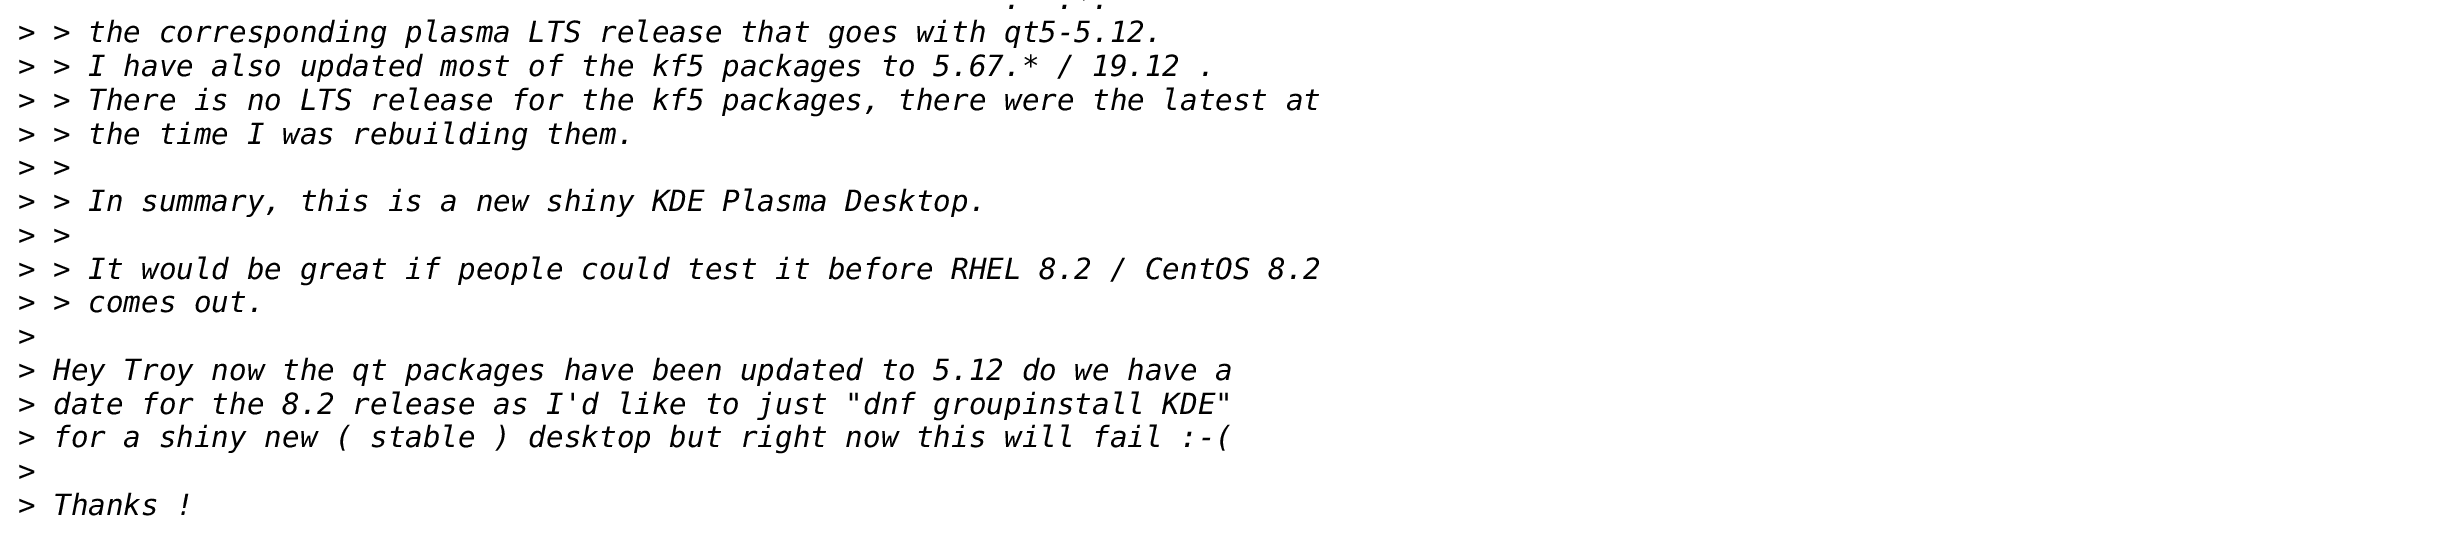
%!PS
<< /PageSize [2443 547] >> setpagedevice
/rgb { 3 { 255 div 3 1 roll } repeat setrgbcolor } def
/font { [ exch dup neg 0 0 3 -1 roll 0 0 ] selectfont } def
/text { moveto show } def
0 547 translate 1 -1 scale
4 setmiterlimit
255 255 255 rgb
0 0 2443 547 rectfill
/DejaVuSansMono-Italic 29.25 font
0 0 0 rgb
(.) 1004 9 text
(.*.) 1057 9 text
/DejaVuSansMono-Regular 29.25 font
(>) 18 42 text
/DejaVuSansMono-Italic 29.25 font
(> the corresponding plasma LTS release that goes with qt5-5.12.) 53 42 text
/DejaVuSansMono-Regular 29.25 font
(>) 18 76 text
/DejaVuSansMono-Italic 29.25 font
(> I have also updated most of the kf5 packages to 5.67.* / 19.12 .) 53 76 text
/DejaVuSansMono-Regular 29.25 font
(>) 18 110 text
/DejaVuSansMono-Italic 29.25 font
(> There is no LTS release for the kf5 packages, there were the latest at) 53 110 text
/DejaVuSansMono-Regular 29.25 font
(>) 18 144 text
/DejaVuSansMono-Italic 29.25 font
(> the time I was rebuilding them.) 53 144 text
/DejaVuSansMono-Regular 29.25 font
(>) 18 177 text
/DejaVuSansMono-Italic 29.25 font
(>) 53 177 text
/DejaVuSansMono-Regular 29.25 font
(>) 18 211 text
/DejaVuSansMono-Italic 29.25 font
(> In summary, this is a new shiny KDE Plasma Desktop.) 53 211 text
/DejaVuSansMono-Regular 29.25 font
(>) 18 245 text
/DejaVuSansMono-Italic 29.25 font
(>) 53 245 text
/DejaVuSansMono-Regular 29.25 font
(>) 18 279 text
/DejaVuSansMono-Italic 29.25 font
(> It would be great if people could test it before RHEL 8.2 / CentOS 8.2) 53 279 text
/DejaVuSansMono-Regular 29.25 font
(>) 18 312 text
/DejaVuSansMono-Italic 29.25 font
(> comes out.) 53 312 text
/DejaVuSansMono-Regular 29.25 font
(>) 18 346 text
(>) 18 380 text
/DejaVuSansMono-Italic 29.25 font
(Hey Troy now the qt packages have been updated to 5.12 do we have a) 53 380 text
/DejaVuSansMono-Regular 29.25 font
(>) 18 414 text
/DejaVuSansMono-Italic 29.25 font
(date for the 8.2 release as I'd like to just "dnf groupinstall KDE") 53 414 text
/DejaVuSansMono-Regular 29.25 font
(>) 18 447 text
/DejaVuSansMono-Italic 29.25 font
(for a shiny new \( stable \) desktop but right now this will fail :-\() 53 447 text
/DejaVuSansMono-Regular 29.25 font
(>) 18 481 text
(>) 18 515 text
/DejaVuSansMono-Italic 29.25 font
(Thanks !) 53 515 text
showpage
